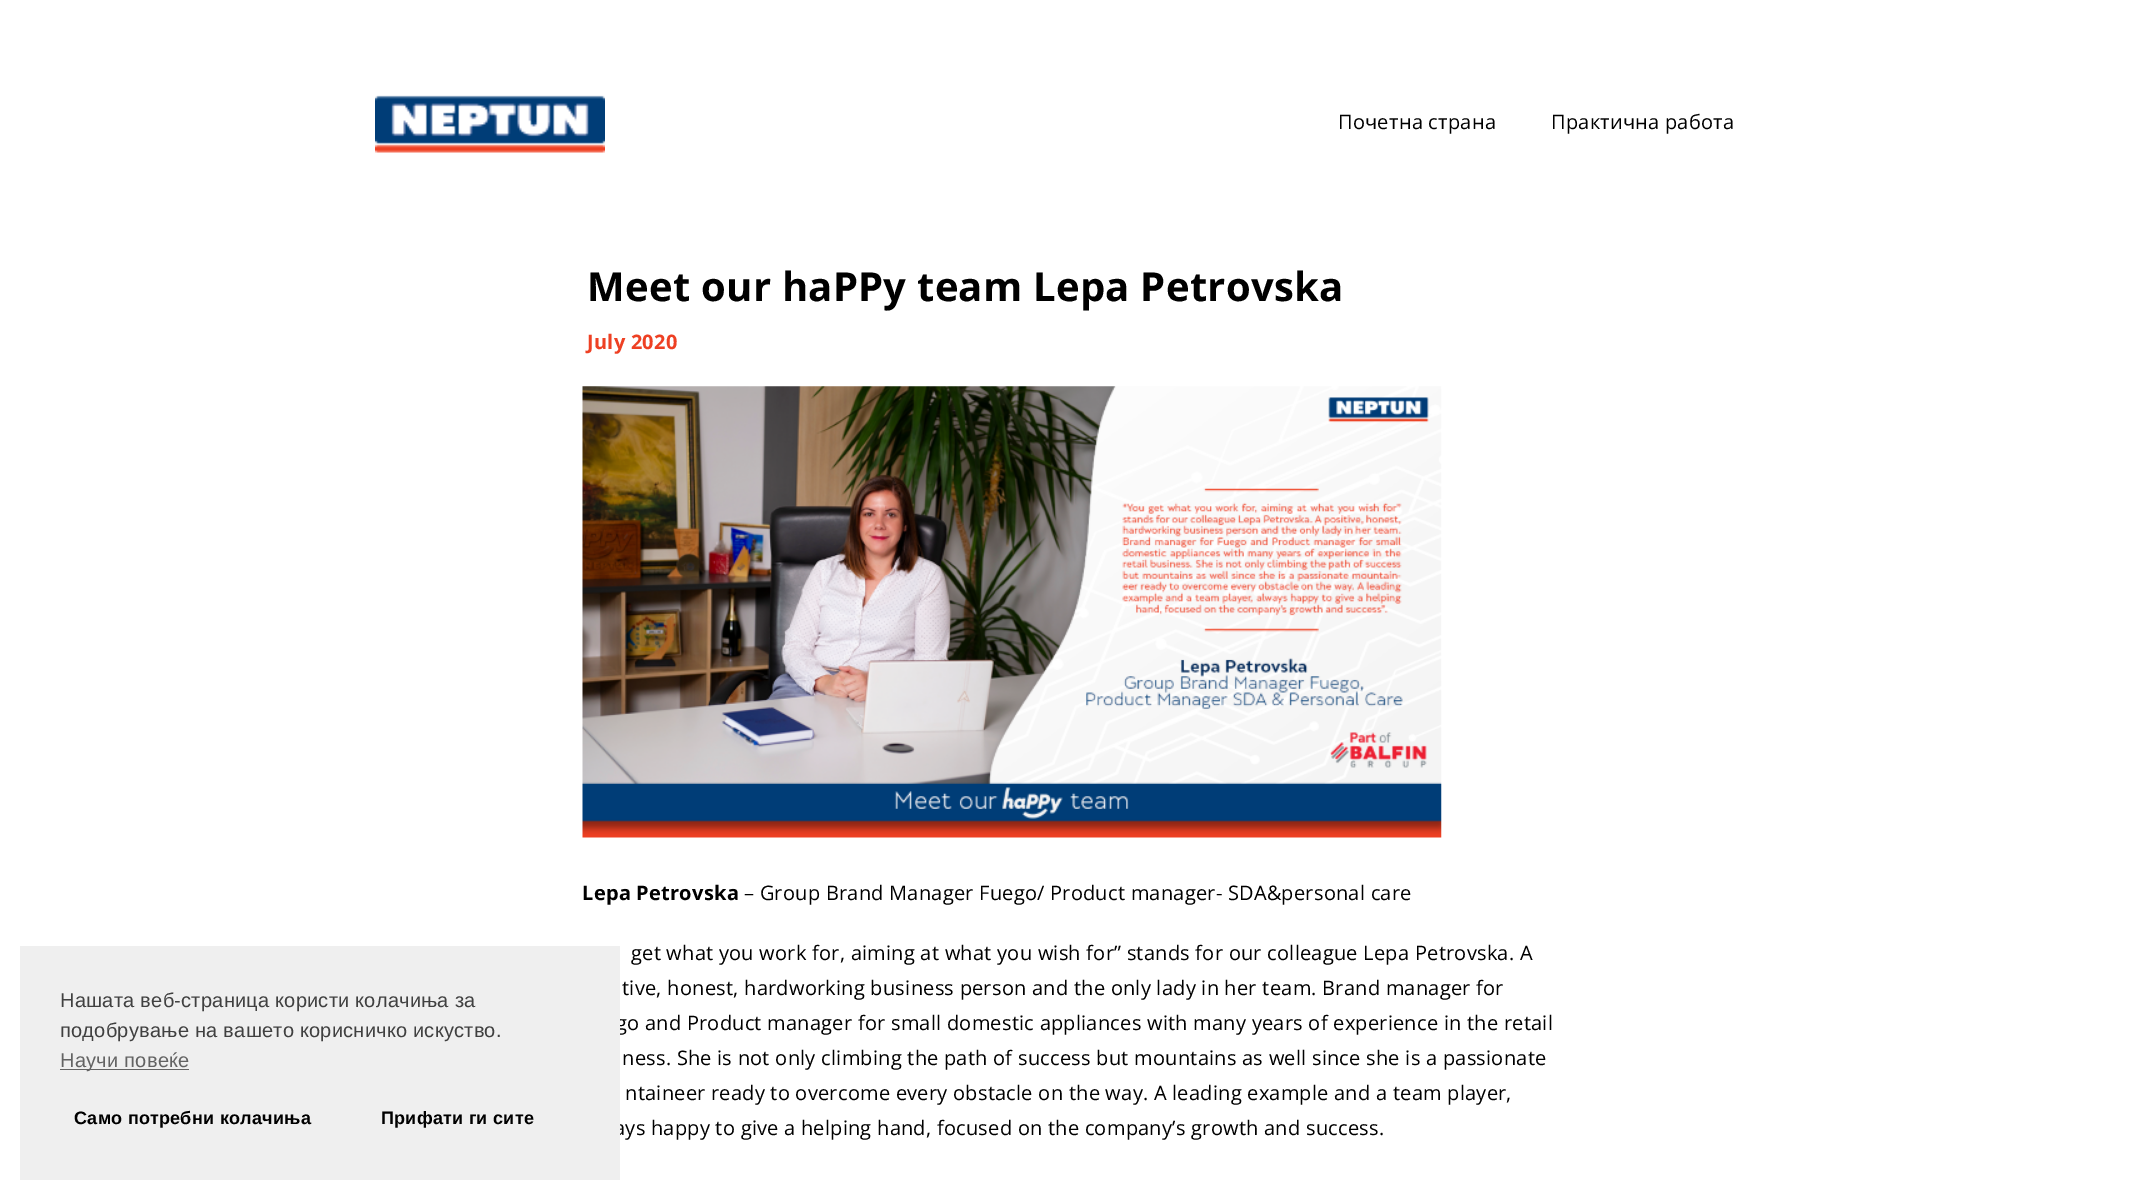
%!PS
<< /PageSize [2136 1200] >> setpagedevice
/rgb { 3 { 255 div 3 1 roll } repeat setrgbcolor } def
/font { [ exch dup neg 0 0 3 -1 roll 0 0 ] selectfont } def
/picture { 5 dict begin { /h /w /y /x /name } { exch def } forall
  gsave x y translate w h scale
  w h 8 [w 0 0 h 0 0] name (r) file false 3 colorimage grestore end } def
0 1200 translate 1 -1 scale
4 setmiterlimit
255 255 255 rgb
0 0 2136 1200 rectfill
(img_01.rgb) 375 95 230 58 picture
(img_02.rgb) 582 386 860 452 picture
/OpenSans-Regular 20 font
0 0 0 rgb
1338 129 moveto 0.25 0 (Почетна страна) ashow
1551 129 moveto 0.25 0 (Практична работа) ashow
/OpenSans-Bold 40 font
587 301 moveto 0.25 0 (Meet our haPPy team Lepa Petrovska) ashow
/OpenSans-Bold 20 font
238 64 35 rgb
587 349 moveto 0.25 0 (July 2020) ashow
0 0 0 rgb
582 900 moveto 0.25 0 (Lepa Petrovska) ashow
/OpenSans-Regular 20 font
744 900 moveto 0.25 0 (– Group Brand Manager Fuego/ Product manager- SDA&personal care) ashow
631 960 moveto 0.25 0 (get what you work for, aiming at what you wish for” stands for our colleague Lepa Petrovska. A) ashow
622 995 moveto 0.25 0 (tive, honest, hardworking business person and the only lady in her team. Brand manager for) ashow
616 1030 moveto 0.25 0 (go and Product manager for small domestic appliances with many years of experience in the retail) ashow
622 1065 moveto 0.25 0 (ness. She is not only climbing the path of success but mountains as well since she is a passionate) ashow
625 1100 moveto 0.25 0 (ntaineer ready to overcome every obstacle on the way. A leading example and a team player,) ashow
614 1135 moveto 0.25 0 (ays happy to give a helping hand, focused on the company’s growth and success.) ashow
239 239 239 rgb
20 946 600 234 rectfill
99 99 99 rgb
60 1069 129 1 rectfill
/LiberationSans-Regular 20 font
60 1067 moveto 0.25 0 (Научи повеќе) ashow
/LiberationSans-Bold 18 font
0 0 0 rgb
381 1124 moveto 0.25 0 (Прифати ги сите) ashow
74 1124 moveto 0.25 0 (Само потребни колачиња) ashow
/LiberationSans-Regular 20 font
64 64 64 rgb
60 1037 moveto 0.25 0 (подобрување на вашето корисничко искуство.) ashow
60 1007 moveto 0.25 0 (Нашата веб-страница користи колачиња за) ashow
showpage
